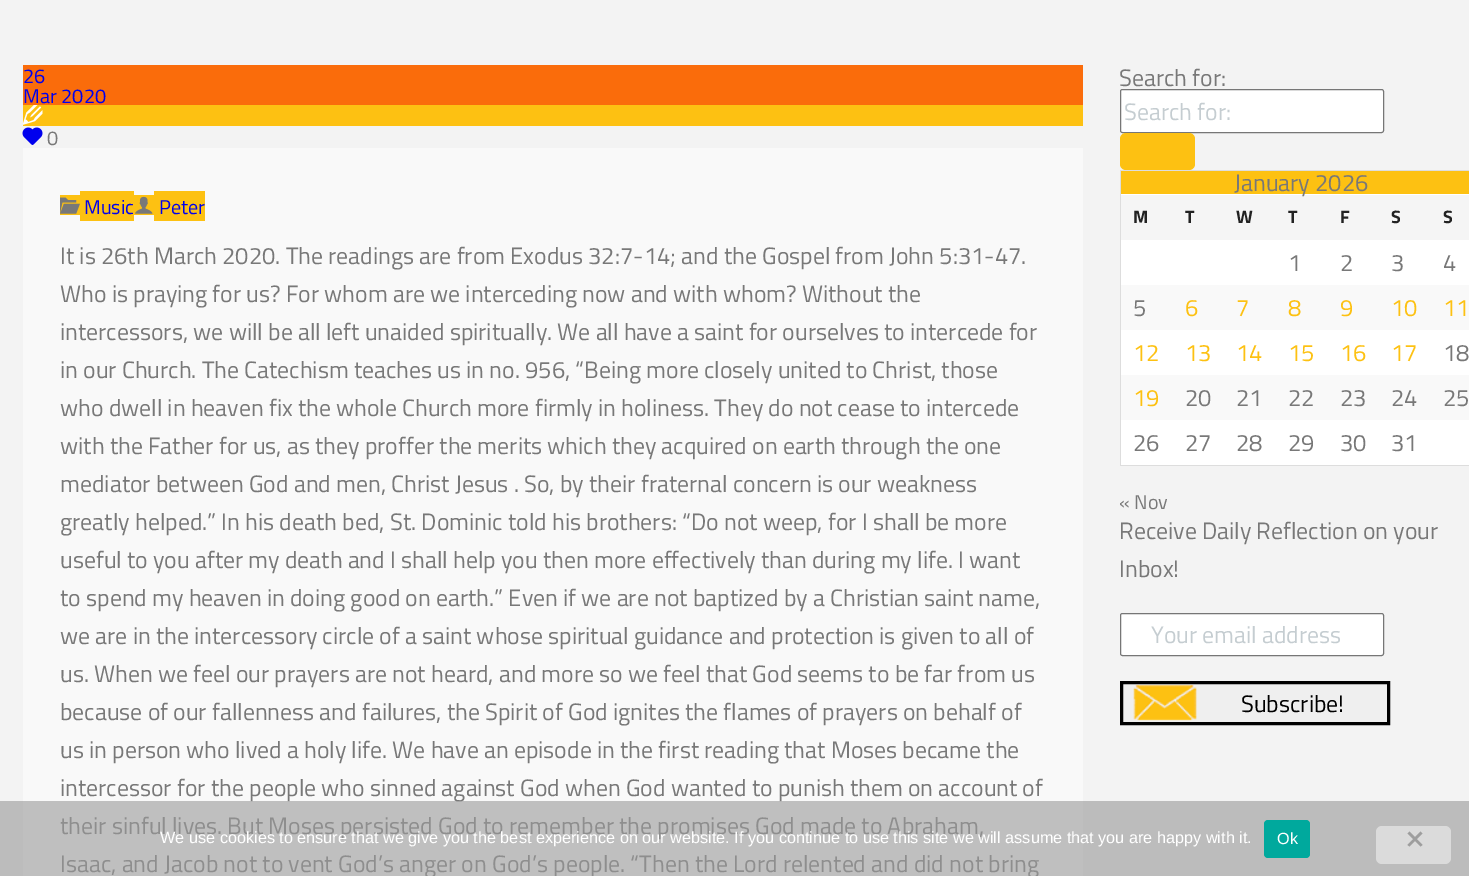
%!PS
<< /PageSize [1469 876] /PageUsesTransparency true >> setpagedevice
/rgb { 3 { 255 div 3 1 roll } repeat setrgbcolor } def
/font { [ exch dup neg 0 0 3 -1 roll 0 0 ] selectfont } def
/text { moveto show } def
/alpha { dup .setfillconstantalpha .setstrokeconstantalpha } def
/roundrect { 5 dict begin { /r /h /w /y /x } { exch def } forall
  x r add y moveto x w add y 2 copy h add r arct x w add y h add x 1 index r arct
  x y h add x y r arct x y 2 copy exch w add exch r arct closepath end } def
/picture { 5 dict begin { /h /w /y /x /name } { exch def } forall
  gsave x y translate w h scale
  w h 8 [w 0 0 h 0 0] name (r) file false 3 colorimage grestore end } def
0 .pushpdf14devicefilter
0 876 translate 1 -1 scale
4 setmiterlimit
243 243 243 rgb
0 0 1469 876 rectfill
250 108 11 rgb
23 65 1060 40 rectfill
253 193 18 rgb
23 105 1060 21 rectfill
(img_01.rgb) 23 105 20 20 picture
(img_02.rgb) 22 127 21 18 picture
249 249 249 rgb
23 148 1060 728 rectfill
253 193 18 rgb
60 195 20 20 rectfill
(img_03.rgb) 60 197 20 17 picture
80 191 54 30 rectfill
134 195 20 20 rectfill
(img_04.rgb) 135 196 18 18 picture
154 191 51 30 rectfill
255 255 255 rgb
1120.5 89.5 263 43 2 roundrect gsave fill grestore
118 118 118 rgb
stroke
253 193 18 rgb
1120 133 75 37 6 roundrect fill
255 255 255 rgb
1121 194 348 271 rectfill
221 221 221 rgb
1120 170 349 1 rectfill
1120 465 349 1 rectfill
1120 170 1 296 rectfill
253 193 18 rgb
1121 171 348 23 rectfill
245 245 245 rgb
1121 195 348 45 rectfill
249 249 249 rgb
1121 285 348 45 rectfill
1121 375 348 45 rectfill
255 255 255 rgb
1120.5 613.5 263 42 2 roundrect gsave fill grestore
118 118 118 rgb
stroke
239 239 239 rgb
1123 684 264 38 rectfill
(img_05.rgb) 1133 684 64 37 picture
0 0 0 rgb
3 setlinewidth
1121.5 682.5 267 41 rectstroke
/TitilliumWeb-Regular 20 font
0 0 238 rgb
(26) 23 83 text
(Mar 2020) 23 103 text
120 120 120 rgb
(0) 47 145 text
0 0 238 rgb
(Music) 84 214 text
(Peter) 159 214 text
/TitilliumWeb-Regular 23.75 font
120 120 120 rgb
(It is 26th March 2020. The readings are from Exodus 32:7-14; and the Gospel from John 5:31-47.) 60 264 text
(Who is praying for us? For whom are we interceding now and with whom? Without the) 60 302 text
(intercessors, we will be all left unaided spiritually. We all have a saint for ourselves to intercede for) 60 340 text
(in our Church. The Catechism teaches us in no. 956, “Being more closely united to Christ, those) 60 378 text
(who dwell in heaven fix the whole Church more firmly in holiness. They do not cease to intercede) 60 416 text
(with the Father for us, as they proffer the merits which they acquired on earth through the one) 60 454 text
(mediator between God and men, Christ Jesus . So, by their fraternal concern is our weakness) 60 492 text
(greatly helped.” In his death bed, St. Dominic told his brothers: “Do not weep, for I shall be more) 60 530 text
(useful to you after my death and I shall help you then more effectively than during my life. I want) 60 568 text
(to spend my heaven in doing good on earth.” Even if we are not baptized by a Christian saint name,) 60 606 text
(we are in the intercessory circle of a saint whose spiritual guidance and protection is given to all of) 60 644 text
(us. When we feel our prayers are not heard, and more so we feel that God seems to be far from us) 60 682 text
(because of our fallenness and failures, the Spirit of God ignites the flames of prayers on behalf of) 60 720 text
(us in person who lived a holy life. We have an episode in the first reading that Moses became the) 60 758 text
(intercessor for the people who sinned against God when God wanted to punish them on account of) 60 796 text
(their sinful lives. But Moses persisted God to remember the promises God made to Abraham,) 60 834 text
(Isaac, and Jacob not to vent God’s anger on God’s people. “Then the Lord relented and did not bring) 60 872 text
(Search for:) 1119 86 text
197 205 209 rgb
(Search for:) 1124 120 text
120 120 120 rgb
(January 2026) 1234 191 text
/TitilliumWeb-Bold 18 font
34 34 34 rgb
(M) 1133 223 text
(T) 1185 223 text
(W) 1236 223 text
(T) 1288 223 text
(F) 1340 223 text
(S) 1391 223 text
(S) 1443 223 text
/TitilliumWeb-Regular 23.75 font
120 120 120 rgb
(1) 1288 271 text
(2) 1340 271 text
(3) 1391 271 text
(4) 1443 271 text
(5) 1133 316 text
253 193 18 rgb
(6) 1185 316 text
(7) 1236 316 text
(8) 1288 316 text
(9) 1340 316 text
(10) 1391 316 text
(11) 1443 316 text
(12) 1133 361 text
(13) 1185 361 text
(14) 1236 361 text
(15) 1288 361 text
(16) 1340 361 text
(17) 1391 361 text
120 120 120 rgb
(18) 1443 361 text
253 193 18 rgb
(19) 1133 406 text
120 120 120 rgb
(20) 1185 406 text
(21) 1236 406 text
(22) 1288 406 text
(23) 1340 406 text
(24) 1391 406 text
(25) 1443 406 text
(26) 1133 451 text
(27) 1185 451 text
(28) 1236 451 text
(29) 1288 451 text
(30) 1340 451 text
(31) 1391 451 text
/TitilliumWeb-Regular 20 font
(« Nov) 1119 509 text
/TitilliumWeb-Regular 23.75 font
(Receive Daily Reflection on your) 1119 539 text
(Inbox!) 1119 577 text
197 205 209 rgb
(Your email address) 1151 643 text
0 0 0 rgb
(Subscribe!) 1241 712 text
0.62 alpha
155 155 155 rgb
0 801 1469 75 rectfill
/LiberationSans-Regular 16.25 font
1 alpha
255 255 255 rgb
(We use cookies to ensure that we give you the best experience on our website. If you continue to use this site we will assume that you are happy with it.) 160 843 text
0 169 157 rgb
1264 820 46 38 4 roundrect fill
255 255 255 rgb
(Ok) 1277 844 text
219 219 219 rgb
1376 826 75 38 6 roundrect fill
158 158 158 rgb
1420.5 831.5 moveto 2 2 rlineto -13 13 rlineto -2 -1.5 rlineto closepath fill
1407.5 833.5 moveto 2 -2 rlineto 13 13.5 rlineto -2 1.5 rlineto closepath fill
.poppdf14devicefilter showpage
